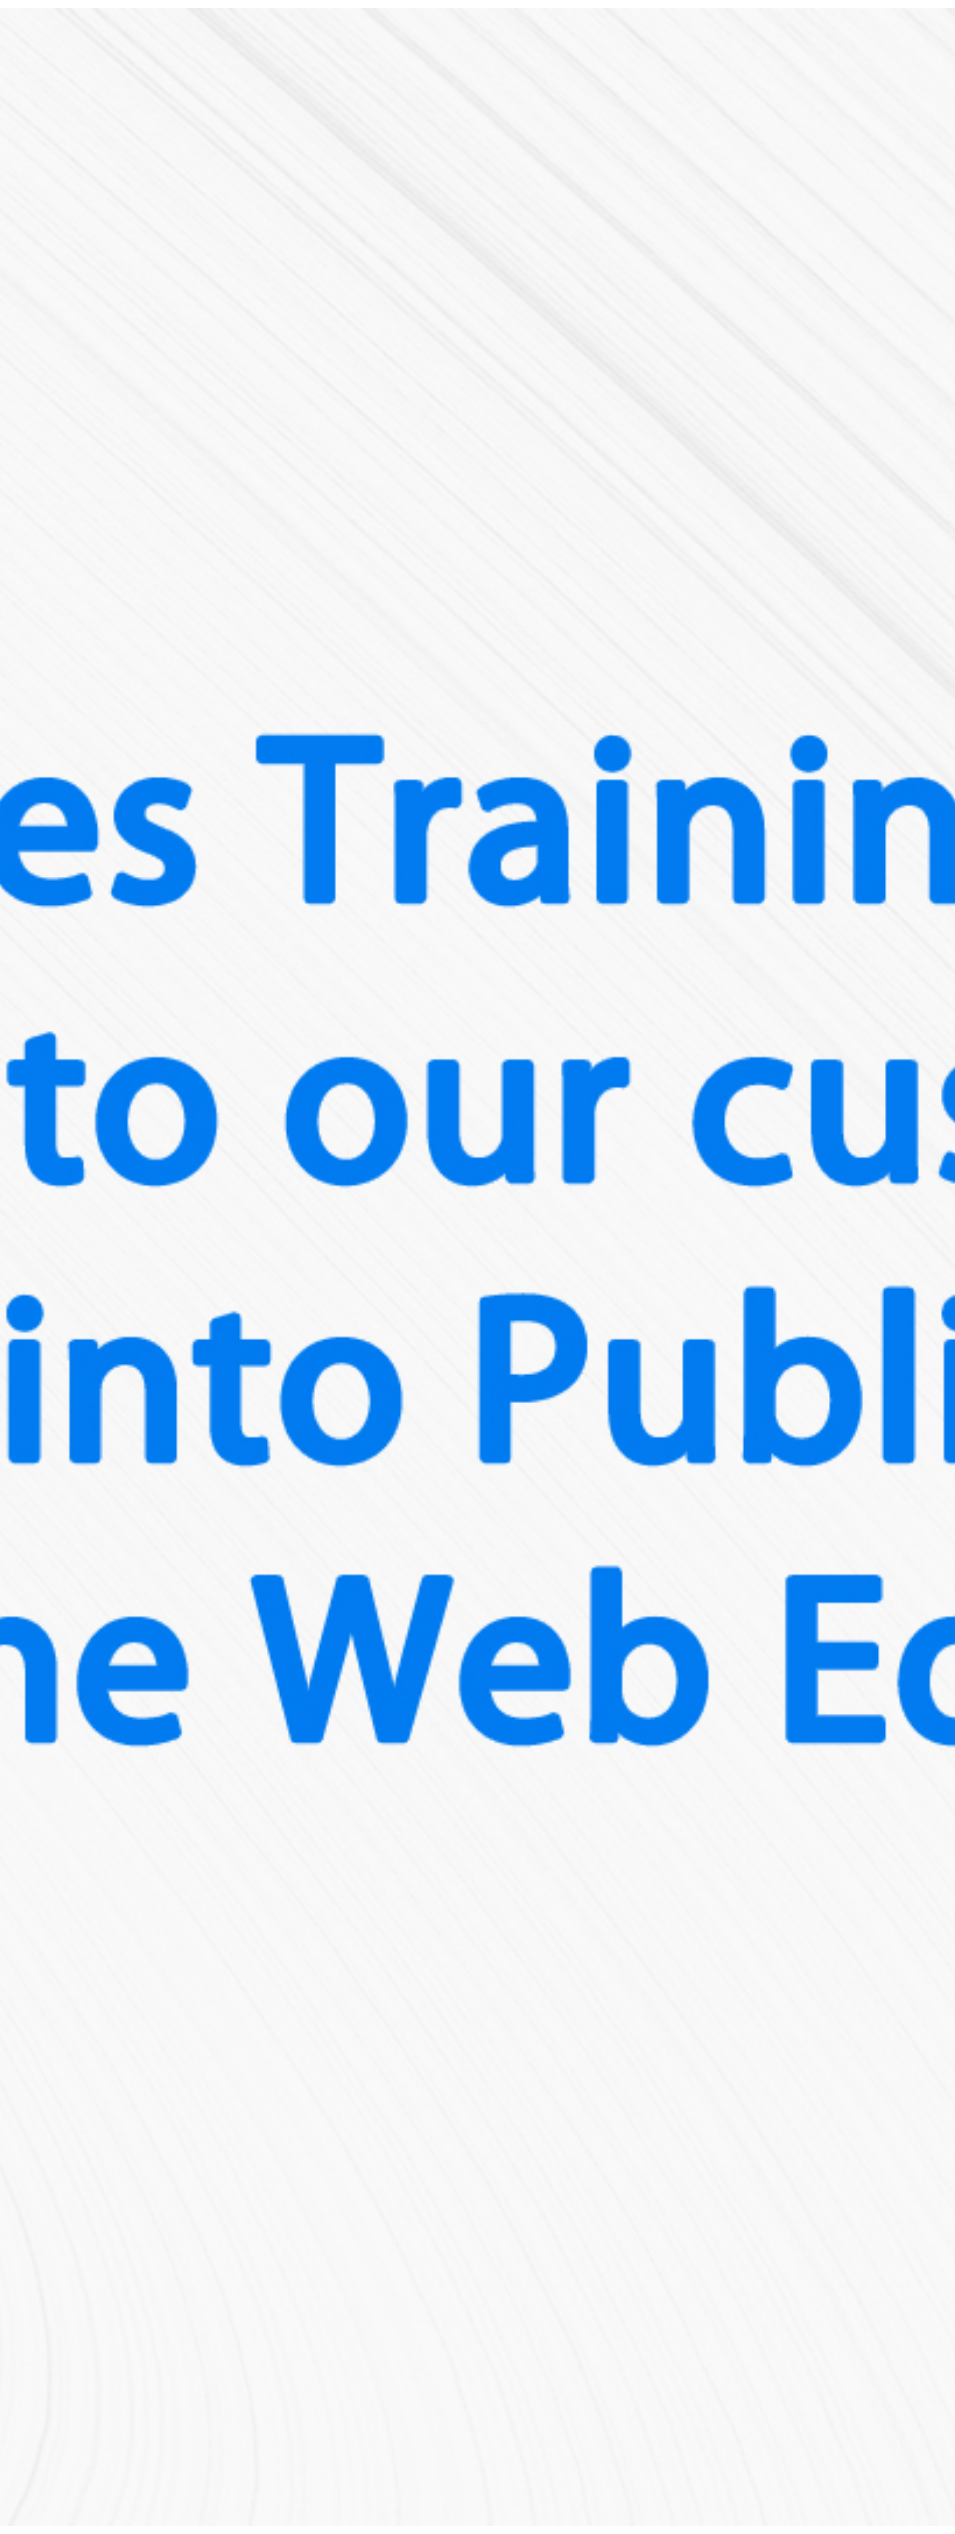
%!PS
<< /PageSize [955 2534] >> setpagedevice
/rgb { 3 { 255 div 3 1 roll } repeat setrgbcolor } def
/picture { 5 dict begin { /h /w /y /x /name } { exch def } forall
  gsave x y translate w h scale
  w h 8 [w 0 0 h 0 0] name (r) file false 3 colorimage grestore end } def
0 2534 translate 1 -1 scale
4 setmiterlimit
255 255 255 rgb
0 0 955 2534 rectfill
(img_01.rgb) 0 8 955 2518 picture
showpage
